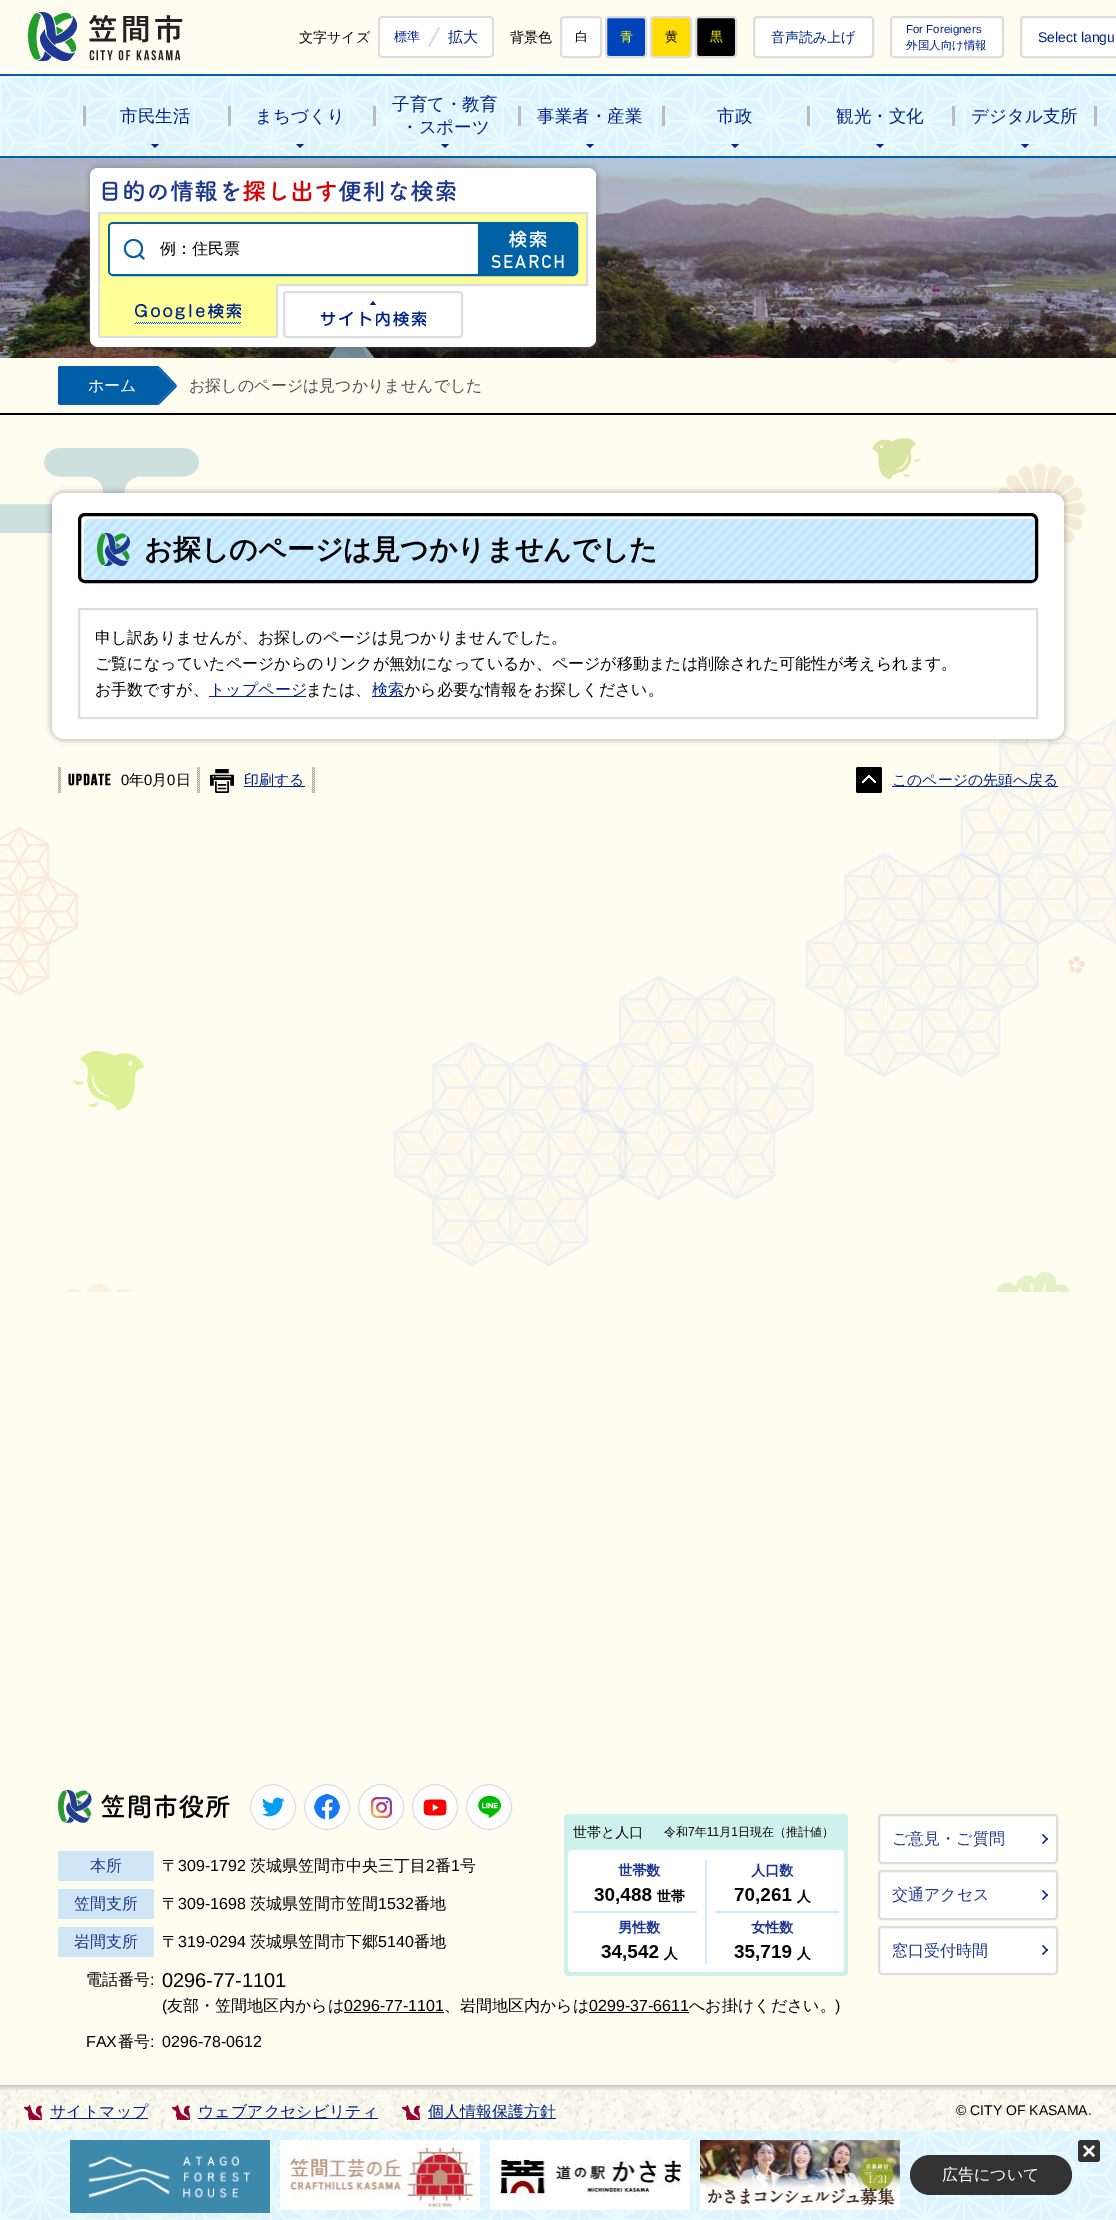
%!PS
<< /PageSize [1116 2220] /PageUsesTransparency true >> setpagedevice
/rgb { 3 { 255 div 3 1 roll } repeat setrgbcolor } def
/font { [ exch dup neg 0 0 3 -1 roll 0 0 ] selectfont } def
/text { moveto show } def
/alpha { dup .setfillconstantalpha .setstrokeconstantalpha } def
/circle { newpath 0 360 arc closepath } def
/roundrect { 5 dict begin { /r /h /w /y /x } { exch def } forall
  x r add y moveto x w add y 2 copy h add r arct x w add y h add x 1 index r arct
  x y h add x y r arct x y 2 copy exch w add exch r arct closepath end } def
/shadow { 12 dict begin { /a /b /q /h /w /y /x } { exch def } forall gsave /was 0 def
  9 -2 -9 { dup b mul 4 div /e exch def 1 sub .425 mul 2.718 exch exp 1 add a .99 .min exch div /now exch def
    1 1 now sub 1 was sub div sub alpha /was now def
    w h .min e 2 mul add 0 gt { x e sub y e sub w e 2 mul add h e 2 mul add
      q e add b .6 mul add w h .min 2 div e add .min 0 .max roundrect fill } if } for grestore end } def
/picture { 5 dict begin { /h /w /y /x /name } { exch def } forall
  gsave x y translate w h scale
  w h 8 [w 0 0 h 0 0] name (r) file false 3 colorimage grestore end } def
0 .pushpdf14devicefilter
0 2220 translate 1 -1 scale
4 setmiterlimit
255 253 240 rgb
0 0 1116 2220 rectfill
(img_01.rgb) 28 12 155 49 picture
255 255 255 rgb
382 16 moveto 52 0 rlineto 0 42 rlineto -52 0 rlineto -2 0 -4 -2 -4 -4 rcurveto 0 -34 rlineto 0 -2 2 -4 4 -4 rcurveto closepath fill
(img_02.rgb) 428 36 6 11 picture
221 221 221 rgb
382 16 moveto 52 0 rlineto 0 42 rlineto -52 0 rlineto -2 0 -4 -2 -4 -4 rcurveto 0 -34 rlineto 0 -2 2 -4 4 -4 rcurveto closepath 382 18 moveto 52 0 rlineto 0 38 rlineto -52 0 rlineto -1 0 -2 -1 -2 -2 rcurveto 0 -34 rlineto 0 -1 1 -2 2 -2 rcurveto closepath eofill
255 255 255 rgb
434 16 moveto 56 0 rlineto 2 0 4 2 4 4 rcurveto 0 34 rlineto 0 2 -2 4 -4 4 rcurveto -56 0 rlineto closepath fill
(img_03.rgb) 434 27 6 11 picture
221 221 221 rgb
434 16 moveto 56 0 rlineto 2 0 4 2 4 4 rcurveto 0 34 rlineto 0 2 -2 4 -4 4 rcurveto -56 0 rlineto closepath 434 18 moveto 56 0 rlineto 1 0 2 1 2 2 rcurveto 0 34 rlineto 0 1 -1 2 -2 2 rcurveto -56 0 rlineto closepath eofill
255 255 255 rgb
561 17 40 40 3 roundrect gsave fill grestore
221 221 221 rgb
2 setlinewidth
stroke
0 68 187 rgb
606 17 40 40 3 roundrect gsave fill grestore
221 221 221 rgb
stroke
255 221 0 rgb
651 17 40 40 3 roundrect gsave fill grestore
221 221 221 rgb
stroke
0 0 0 rgb
696 17 40 40 3 roundrect gsave fill grestore
221 221 221 rgb
stroke
255 255 255 rgb
754 17 119 40 3 roundrect gsave fill grestore
221 221 221 rgb
stroke
255 255 255 rgb
891 17 112 40 3 roundrect gsave fill grestore
221 221 221 rgb
stroke
255 255 255 rgb
1021 17 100 40 3 roundrect gsave fill grestore
221 221 221 rgb
stroke
(img_04.rgb) 0 76 1116 80 picture
0 95 167 rgb
0 74 1116 2 rectfill
0 156 1116 2 rectfill
187 187 187 rgb
83 106 3 20 rectfill
(img_05.rgb) 151 144 8 4 picture
228 106 3 20 rectfill
(img_06.rgb) 296 144 8 4 picture
373 106 3 20 rectfill
(img_07.rgb) 441 144 8 4 picture
518 106 3 20 rectfill
(img_08.rgb) 586 144 8 4 picture
662 106 3 20 rectfill
(img_09.rgb) 731 144 8 4 picture
807 106 3 20 rectfill
(img_10.rgb) 876 144 8 4 picture
(img_11.rgb) 952 106 145 20 picture
(img_12.rgb) 1021 144 8 4 picture
(img_13.rgb) 0 358 1116 934 picture
(img_14.rgb) 0 158 1116 200 picture
(img_15.rgb) 85 163 516 189 picture
(img_16.rgb) 102 180 354 22 picture
255 255 153 rgb
99 213 moveto 488 0 rlineto 0 72 rlineto -488 0 rlineto closepath gsave fill grestore
221 221 221 rgb
stroke
0 97 165 rgb
109 223 468 52 4 roundrect stroke
255 255 255 rgb
113 224 moveto 377 0 rlineto 0 50 rlineto -377 0 rlineto -1.5 0 -3 -1.5 -3 -3 rcurveto 0 -44 rlineto 0 -1.5 1.5 -3 3 -3 rcurveto closepath fill
(img_17.rgb) 124 239 21 21 picture
0 97 165 rgb
478 224 moveto 95 0 rlineto 1.5 0 3 1.5 3 3 rcurveto 0 44 rlineto 0 1.5 -1.5 3 -3 3 rcurveto -95 0 rlineto closepath fill
(img_18.rgb) 491 230 73 38 picture
255 255 153 rgb
100 284 176 52 rectfill
(img_19.rgb) 135 303 106 21 picture
221 221 221 rgb
276 284 2 54 rectfill
98 336 180 2 rectfill
98 284 2 54 rectfill
(img_20.rgb) 320 301 106 26 picture
284 292 178 45 3 roundrect stroke
0 0 0 rgb
0 413 1116 2 rectfill
0 95 167 rgb
60 366 moveto 117 0 rlineto 0 39 rlineto -117 0 rlineto -1 0 -2 -1 -2 -2 rcurveto 0 -35 rlineto 0 -1 1 -2 2 -2 rcurveto closepath fill
(img_21.rgb) 157 366 20 39 picture
0 0 0 rgb
50 491 1016 250 14 2.5 0.2 shadow
255 255 255 rgb
52 493 1012 246 12 roundrect fill
0 0 0 rgb
3 setlinewidth
79.5 514.5 957 67 5.5 roundrect stroke
(img_22.rgb) 84 519 951 61 picture
221 221 221 rgb
2 setlinewidth
79 609 958 109 rectstroke
0 34 136 rgb
209 696 97 1 rectfill
372 696 32 1 rectfill
(img_23.rgb) 58 767 3 26 picture
(img_23.rgb) 197 767 3 26 picture
(img_24.rgb) 68 773 43 13 picture
(img_23.rgb) 312 767 3 26 picture
(img_25.rgb) 210 769 24 24 picture
244 786 61 1 rectfill
(img_26.rgb) 856 767 26 26 picture
892 786 166 1 rectfill
(img_27.rgb) 58 1790 172 33 picture
255 255 255 rgb
273 1807 23 circle fill
(img_28.rgb) 262 1797 23 20 picture
221 221 221 rgb
1 setlinewidth
273 1807 22.5 circle stroke
255 255 255 rgb
327 1807 23 circle fill
(img_29.rgb) 314 1794 26 26 picture
221 221 221 rgb
327 1807 22.5 circle stroke
255 255 255 rgb
381 1807 23 circle fill
(img_30.rgb) 371 1797 21 21 picture
221 221 221 rgb
381 1807 22.5 circle stroke
255 255 255 rgb
435 1807 23 circle fill
(img_31.rgb) 423 1799 24 17 picture
221 221 221 rgb
435 1807 22.5 circle stroke
255 255 255 rgb
489 1807 23 circle fill
(img_32.rgb) 478 1796 23 22 picture
221 221 221 rgb
489 1807 22.5 circle stroke
208 229 245 rgb
58 1851 96 30 2 roundrect fill
58 1889 96 30 2 roundrect fill
58 1927 96 30 2 roundrect fill
207 241 235 rgb
564 1814 284 162 4 roundrect fill
(img_33.rgb) 568 1825 276 147 picture
255 255 255 rgb
878 1814 180 50 4 roundrect fill
(img_34.rgb) 1042 1834 6 10 picture
221 221 221 rgb
2 setlinewidth
879 1815 178 48 3 roundrect stroke
255 255 255 rgb
878 1870 180 50 4 roundrect fill
(img_34.rgb) 1042 1890 6 10 picture
221 221 221 rgb
879 1871 178 48 3 roundrect stroke
255 255 255 rgb
878 1926 180 49 4 roundrect fill
(img_34.rgb) 1042 1945 6 10 picture
221 221 221 rgb
879 1927 178 47 3 roundrect stroke
0 0 0 rgb
344 2012 100 1 rectfill
589 2012 100 1 rectfill
(img_35.rgb) 0 2085 1116 45 picture
(img_36.rgb) 24 2105 18 15 picture
0 34 136 rgb
50 2118 98 1 rectfill
(img_37.rgb) 172 2105 18 15 picture
198 2118 180 1 rectfill
(img_38.rgb) 402 2105 18 15 picture
428 2118 128 1 rectfill
(img_39.rgb) 0 2130 1116 90 picture
(img_40.rgb) 70 2140 200 73 picture
(img_41.rgb) 280 2140 200 70 picture
(img_42.rgb) 490 2140 200 70 picture
(img_43.rgb) 700 2140 200 70 picture
51 51 51 rgb
1078 2140 22 22 3 roundrect fill
(img_44.rgb) 1083 2145 12 12 picture
910 2155 162 40 20 roundrect fill
/WenQuanYiZenHei-Medium 14 font
0 0 0 rgb
(文字サイズ) 299 42 text
/WenQuanYiZenHei-Medium 13 font
0 33 140 rgb
(標準) 394 41 text
/WenQuanYiZenHei-Medium 15 font
(拡大) 448 42 text
/WenQuanYiZenHei-Medium 14 font
0 0 0 rgb
(背景色) 510 42 text
/WenQuanYiZenHei-Medium 13 font
(白) 575 41 text
255 255 0 rgb
(青) 620 41 text
0 0 0 rgb
(黄) 665 41 text
255 255 0 rgb
(黒) 710 41 text
/WenQuanYiZenHei-Medium 14 font
0 33 140 rgb
(音声読み上げ) 771 42 text
/LiberationSans-Regular 11.5 font
(For Foreigners) 906 33 text
/WenQuanYiZenHei-Medium 11.5 font
(外国人向け情報) 906 49 text
/LiberationSans-Regular 14 font
(Select langu) 1038 42 text
/WenQuanYiZenHei-Medium 17.5 font
(市民生活) 120 122 text
(まちづくり) 255 122 text
(子育て・教育) 392 110 text
(・スポーツ) 401 133 text
(事業者・産業) 537 122 text
(市政) 717 122 text
(観光・文化) 836 122 text
(デジタル支所) 971 122 text
/WenQuanYiZenHei-Medium 16 font
0 0 0 rgb
(例：住民票) 160 254 text
255 255 255 rgb
(ホーム) 88 391 text
78 78 78 rgb
(お探しのページは見つかりませんでした) 189 391 text
/WenQuanYiZenHei-Bold 28 font
0 0 0 rgb
(お探しのページは見つかりませんでした) 144 559 text
/WenQuanYiZenHei-Medium 16 font
(申し訳ありませんが、お探しのページは見つかりませんでした。) 95 643 text
(ご覧になっていたページからのリンクが無効になっているか、ページが移動または削除された可能性が考えられます。) 95 669 text
(お手数ですが、) 95 695 text
0 33 140 rgb
(トップページ) 209 695 text
0 0 0 rgb
(または、) 306 695 text
0 33 140 rgb
(検索) 372 695 text
0 0 0 rgb
(から必要な情報をお探しください。) 404 695 text
/LiberationSans-Regular 14.9 font
(0) 121 785 text
/WenQuanYiZenHei-Medium 14.9 font
(年) 129 785 text
/LiberationSans-Regular 14.9 font
(0) 144 785 text
/WenQuanYiZenHei-Medium 14.9 font
(月) 152 785 text
/LiberationSans-Regular 14.9 font
(0) 167 785 text
/WenQuanYiZenHei-Medium 14.9 font
(日) 176 785 text
0 33 140 rgb
(印刷する) 244 785 text
(このページの先頭へ戻る) 892 785 text
/WenQuanYiZenHei-Medium 16 font
32 58 144 rgb
(本所) 90 1871 text
0 0 0 rgb
(〒) 162 1871 text
/LiberationSans-Regular 16 font
(309-1792) 178 1871 text
/WenQuanYiZenHei-Medium 16 font
(茨城県笠間市中央三丁目) 250 1871 text
/LiberationSans-Regular 16 font
(2) 426 1871 text
/WenQuanYiZenHei-Medium 16 font
(番) 435 1871 text
/LiberationSans-Regular 16 font
(1) 451 1871 text
/WenQuanYiZenHei-Medium 16 font
(号) 460 1871 text
32 58 144 rgb
(笠間支所) 74 1909 text
0 0 0 rgb
(〒) 162 1909 text
/LiberationSans-Regular 16 font
(309-1698) 178 1909 text
/WenQuanYiZenHei-Medium 16 font
(茨城県笠間市笠間) 250 1909 text
/LiberationSans-Regular 16 font
(1532) 378 1909 text
/WenQuanYiZenHei-Medium 16 font
(番地) 414 1909 text
32 58 144 rgb
(岩間支所) 74 1947 text
0 0 0 rgb
(〒) 162 1947 text
/LiberationSans-Regular 16 font
(319-0294) 178 1947 text
/WenQuanYiZenHei-Medium 16 font
(茨城県笠間市下郷) 250 1947 text
/LiberationSans-Regular 16 font
(5140) 378 1947 text
/WenQuanYiZenHei-Medium 16 font
(番地) 414 1947 text
32 58 144 rgb
(ご意見・ご質問) 892 1844 text
(交通アクセス) 892 1900 text
(窓口受付時間) 892 1956 text
0 0 0 rgb
(電話番号) 86 1985 text
/LiberationSans-Regular 16 font
(:) 150 1985 text
/LiberationSans-Regular 20 font
(0296-77-1101) 162 1987 text
/LiberationSans-Regular 16 font
(\() 162 2011 text
/WenQuanYiZenHei-Medium 16 font
(友部・笠間地区内からは) 167 2011 text
/LiberationSans-Regular 16 font
(0296-77-1101) 344 2011 text
/WenQuanYiZenHei-Medium 16 font
(、岩間地区内からは) 444 2011 text
/LiberationSans-Regular 16 font
(0299-37-6611) 589 2011 text
/WenQuanYiZenHei-Medium 16 font
(へお掛けください。) 689 2011 text
/LiberationSans-Regular 16 font
(\)) 835 2011 text
(FAX) 86 2047 text
/WenQuanYiZenHei-Medium 16 font
(番号) 118 2047 text
/LiberationSans-Regular 16 font
(:) 150 2047 text
(0296-78-0612) 162 2047 text
/WenQuanYiZenHei-Medium 16 font
0 33 140 rgb
(サイトマップ) 50 2117 text
(ウェブアクセシビリティ) 198 2117 text
(個人情報保護方針) 428 2117 text
/LiberationSans-Regular 14 font
0 0 0 rgb
(© CITY OF KASAMA.) 956 2115 text
/WenQuanYiZenHei-Medium 16 font
255 255 255 rgb
(広告について) 942 2180 text
.poppdf14devicefilter showpage
